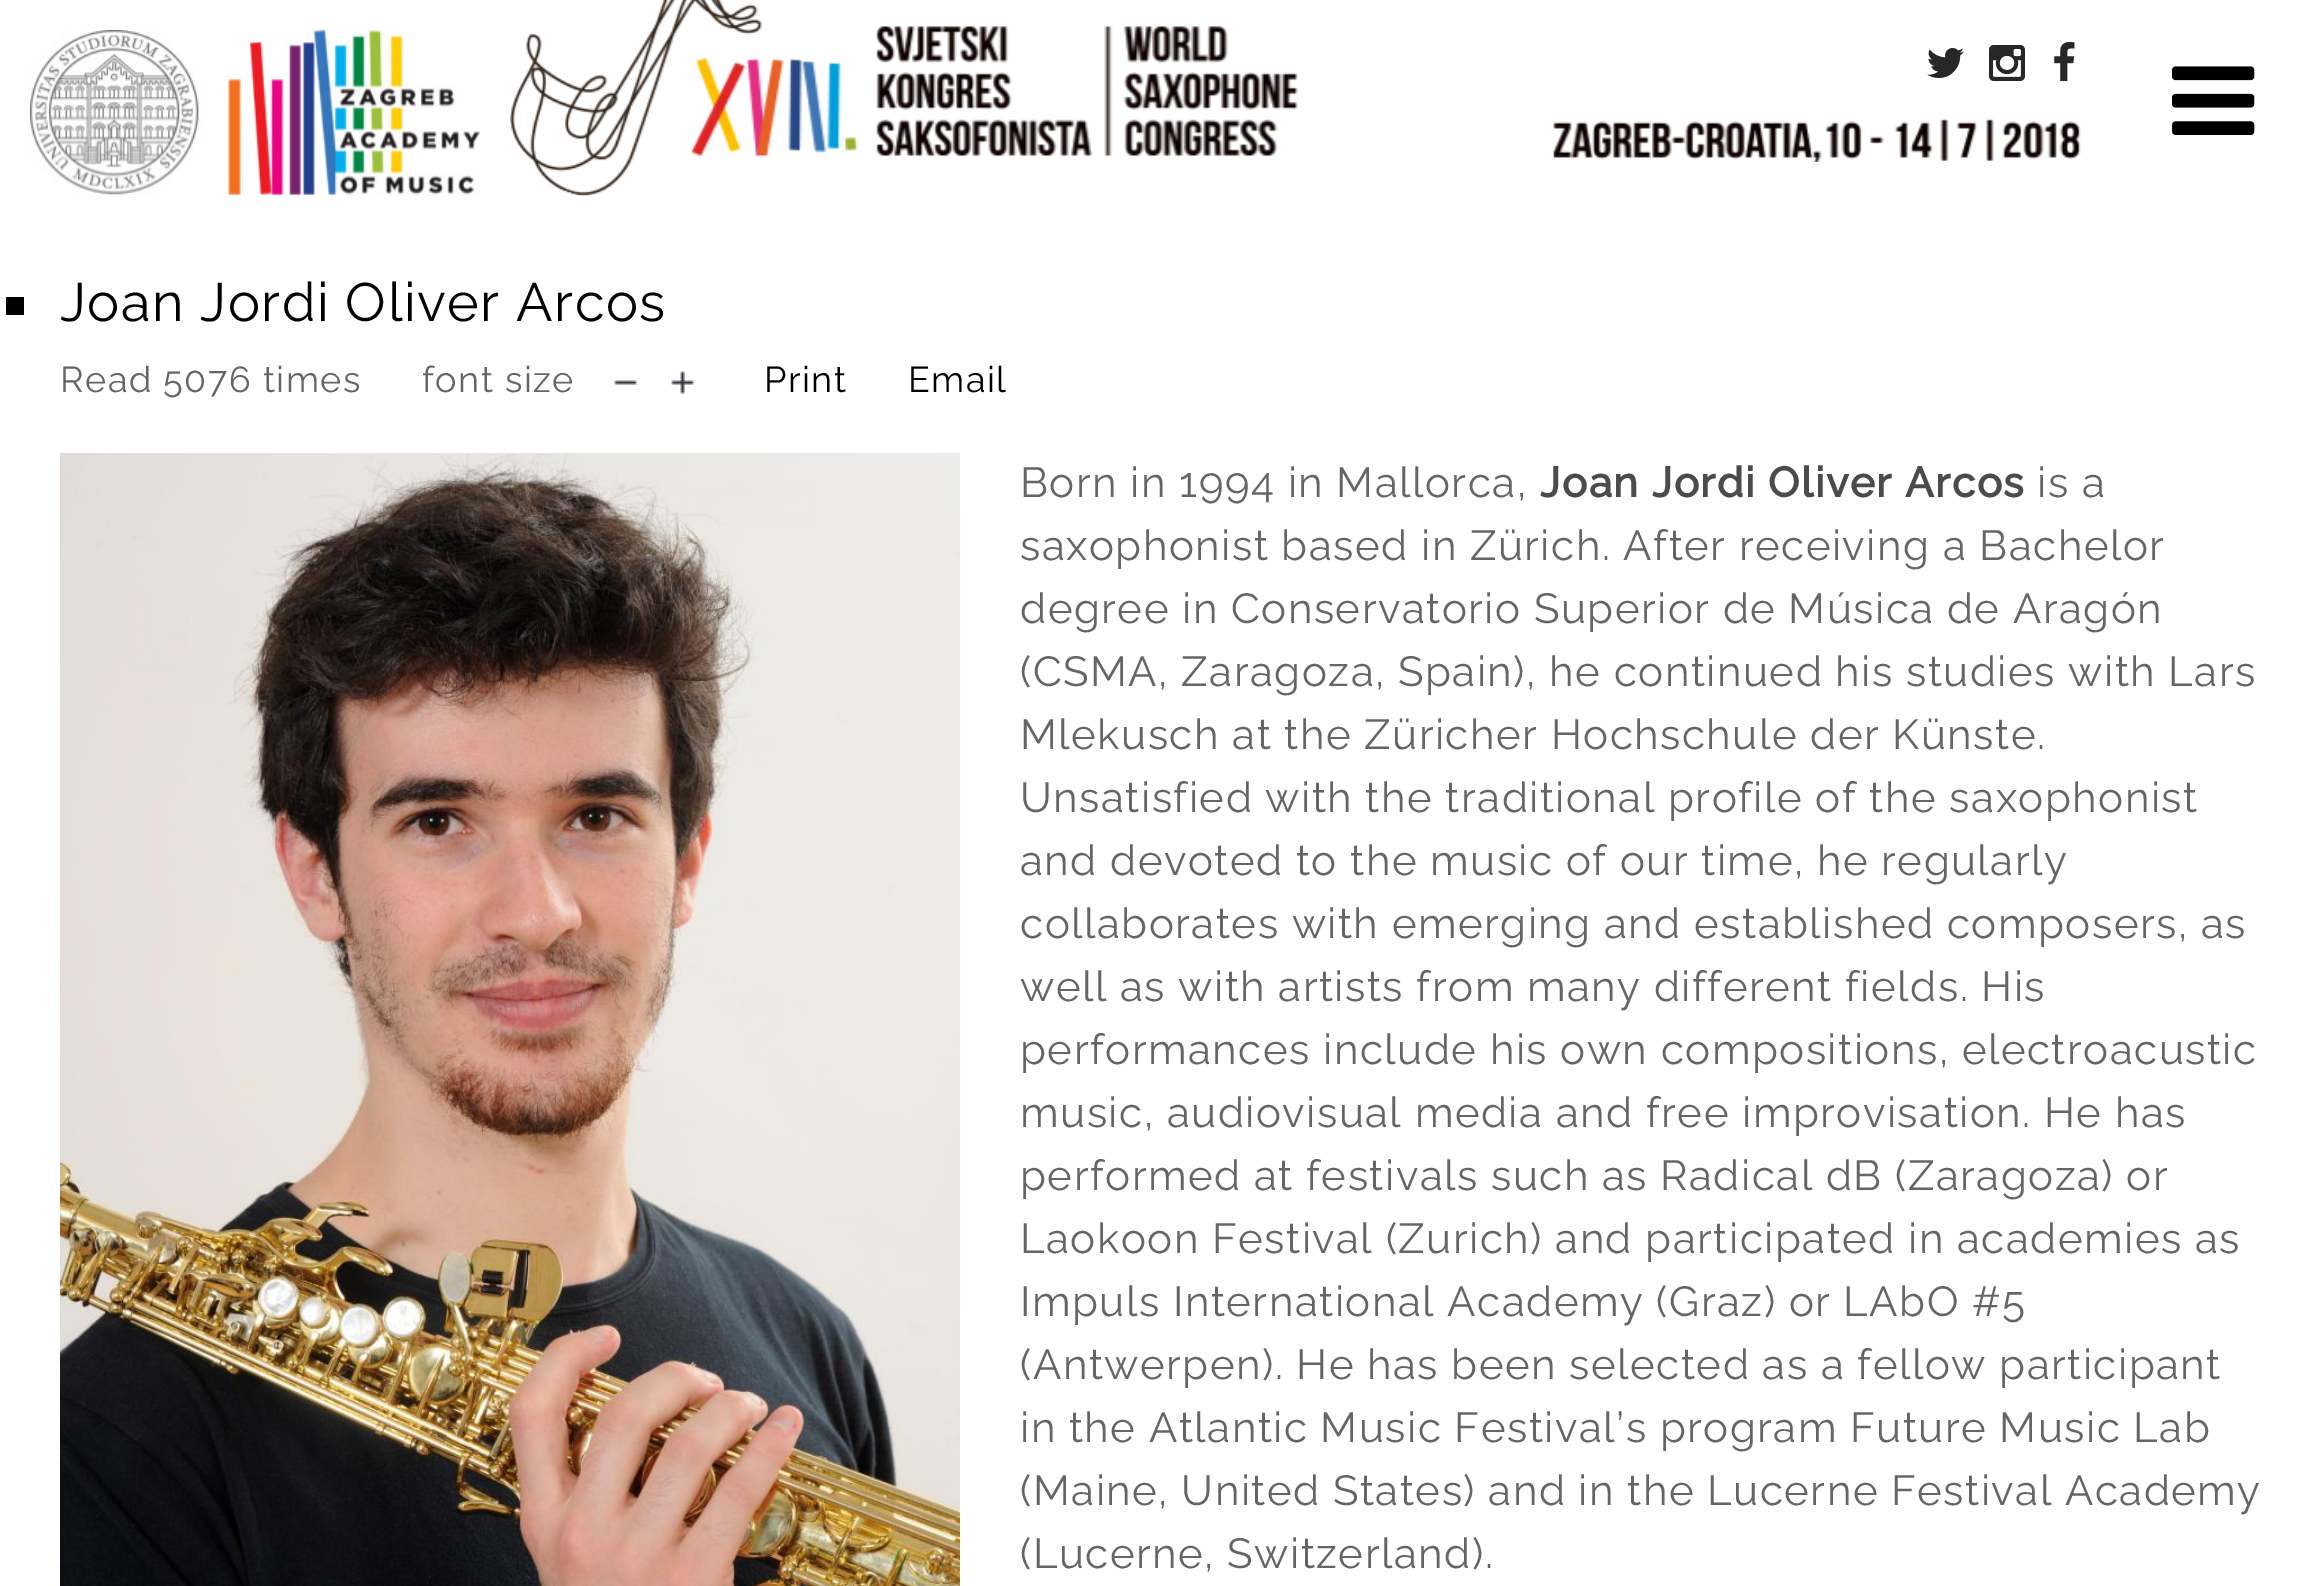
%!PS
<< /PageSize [2323 1586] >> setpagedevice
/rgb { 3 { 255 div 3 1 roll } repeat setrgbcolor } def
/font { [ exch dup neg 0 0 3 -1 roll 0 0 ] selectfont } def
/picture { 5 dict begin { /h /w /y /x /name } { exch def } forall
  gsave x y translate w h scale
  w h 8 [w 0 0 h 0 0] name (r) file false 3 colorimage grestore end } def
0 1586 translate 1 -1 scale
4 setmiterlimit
255 255 255 rgb
0 0 2323 1586 rectfill
(img_01.rgb) 30 30 450 165 picture
(img_02.rgb) 2172 66 83 69 picture
(img_03.rgb) 510 0 253 196 picture
(img_04.rgb) 691 26 607 131 picture
(img_05.rgb) 1927 48 37 30 picture
(img_06.rgb) 1989 45 36 36 picture
(img_07.rgb) 2054 42 21 39 picture
(img_08.rgb) 1553 118 528 44 picture
0 0 0 rgb
6 297 18 18 rectfill
(img_09.rgb) 614 380 24 5 picture
(img_10.rgb) 671 371 23 23 picture
(img_11.rgb) 60 453 900 1133 picture
/Raleway-Regular 54 font
60 321 moveto 1.5 0 (Joan Jordi Oliver Arcos) ashow
/Raleway-Regular 36 font
101 101 101 rgb
60 392 moveto 1.5 0 (Read 5076 times) ashow
422 392 moveto 1.5 0 (font size) ashow
0 0 0 rgb
764 392 moveto 1.5 0 (Print) ashow
908 392 moveto 1.5 0 (Email) ashow
/Raleway-Regular 42 font
101 101 101 rgb
1020 497 moveto 1.5 0 (Born in 1994 in Mallorca,) ashow
/Raleway-Bold 42 font
75 75 75 rgb
1540 497 moveto 1.5 0 (Joan Jordi Oliver Arcos) ashow
/Raleway-Regular 42 font
101 101 101 rgb
2037 497 moveto 1.5 0 (is a) ashow
1020 560 moveto 1.5 0 (saxophonist based in Zürich. After receiving a Bachelor) ashow
1020 623 moveto 1.5 0 (degree in Conservatorio Superior de Música de Aragón) ashow
1020 686 moveto 1.5 0 (\(CSMA, Zaragoza, Spain\), he continued his studies with Lars) ashow
1020 749 moveto 1.5 0 (Mlekusch at the Züricher Hochschule der Künste.) ashow
1020 812 moveto 1.5 0 (Unsatisfied with the traditional profile of the saxophonist) ashow
1020 875 moveto 1.5 0 (and devoted to the music of our time, he regularly) ashow
1020 938 moveto 1.5 0 (collaborates with emerging and established composers, as) ashow
1020 1001 moveto 1.5 0 (well as with artists from many different fields. His) ashow
1020 1064 moveto 1.5 0 (performances include his own compositions, electroacustic) ashow
1020 1127 moveto 1.5 0 (music, audiovisual media and free improvisation. He has) ashow
1020 1190 moveto 1.5 0 (performed at festivals such as Radical dB \(Zaragoza\) or) ashow
1020 1253 moveto 1.5 0 (Laokoon Festival \(Zurich\) and participated in academies as) ashow
1020 1316 moveto 1.5 0 (Impuls International Academy \(Graz\) or LAbO #5) ashow
1020 1379 moveto 1.5 0 (\(Antwerpen\). He has been selected as a fellow participant) ashow
1020 1442 moveto 1.5 0 (in the Atlantic Music Festival’s program Future Music Lab) ashow
1020 1505 moveto 1.5 0 (\(Maine, United States\) and in the Lucerne Festival Academy) ashow
1020 1568 moveto 1.5 0 (\(Lucerne, Switzerland\).) ashow
showpage
